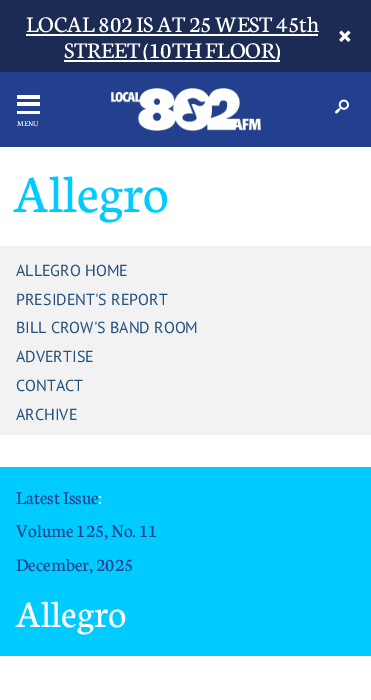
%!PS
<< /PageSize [371 700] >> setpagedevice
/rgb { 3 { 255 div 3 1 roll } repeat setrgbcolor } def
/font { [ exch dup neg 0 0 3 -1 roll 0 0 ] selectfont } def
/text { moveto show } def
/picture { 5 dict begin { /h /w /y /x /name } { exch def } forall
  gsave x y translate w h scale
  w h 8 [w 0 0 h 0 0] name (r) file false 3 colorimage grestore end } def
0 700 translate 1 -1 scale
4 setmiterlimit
255 255 255 rgb
0 0 371 700 rectfill
27 43 84 rgb
0 0 371 72 rectfill
255 255 255 rgb
26 34 292 2 rectfill
64 60 216 2 rectfill
(img_01.rgb) 339 30 12 12 picture
35 64 142 rgb
0 72 371 75 rectfill
(img_02.rgb) 111 88 150 43 picture
(img_03.rgb) 335 99 14 15 picture
255 255 255 rgb
17 95 23 4 rectfill
17 102 23 4 rectfill
17 111 23 3 rectfill
242 242 242 rgb
0 246 371 189 rectfill
0 203 255 rgb
0 467 371 189 rectfill
/Neuton-Regular 24 font
255 255 255 rgb
(LOCAL 802 IS AT 25 WEST 45th) 26 32 text
(STREET \(10TH FLOOR\)) 64 58 text
/Neuton-Regular 8 font
(MENU) 17 126 text
/Neuton-Regular 56 font
0 203 255 rgb
(Allegro) 14 212 text
/PTSans-Regular 16 font
35 82 124 rgb
(ALLEGRO HOME) 16 276 text
(PRESIDENT'S REPORT) 16 305 text
(BILL CROW'S BAND ROOM) 16 333 text
(ADVERTISE) 16 362 text
(CONTACT) 16 391 text
(ARCHIVE) 16 420 text
/Neuton-Regular 19.25 font
35 64 142 rgb
(Latest Issue) 16 504 text
255 255 255 rgb
(:) 98 504 text
35 64 142 rgb
(Volume 125, No. 11) 16 537 text
(December, 2025) 16 571 text
/Neuton-Regular 40 font
255 255 255 rgb
(Allegro) 16 627 text
showpage
